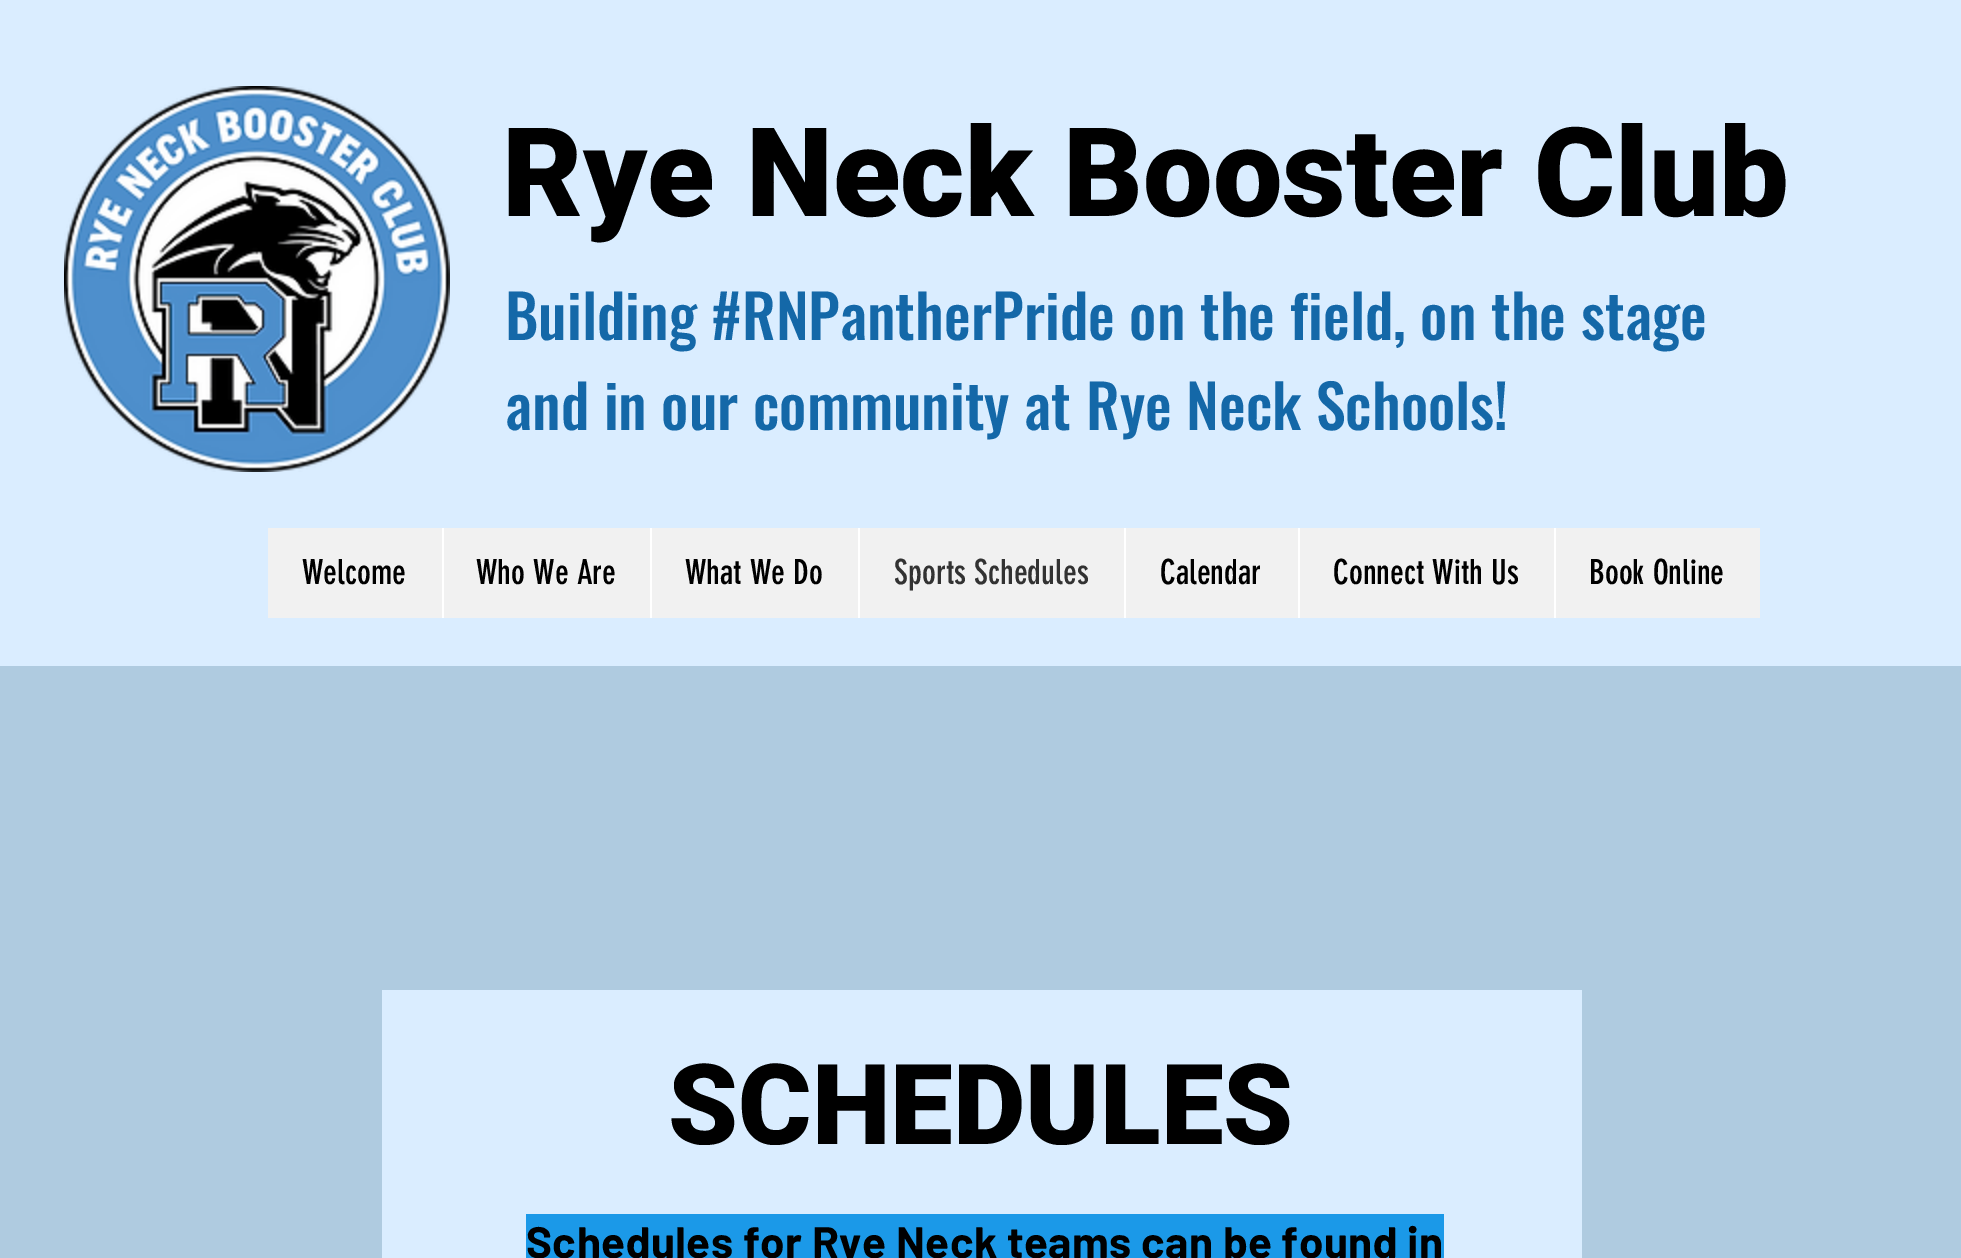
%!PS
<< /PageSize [1961 1258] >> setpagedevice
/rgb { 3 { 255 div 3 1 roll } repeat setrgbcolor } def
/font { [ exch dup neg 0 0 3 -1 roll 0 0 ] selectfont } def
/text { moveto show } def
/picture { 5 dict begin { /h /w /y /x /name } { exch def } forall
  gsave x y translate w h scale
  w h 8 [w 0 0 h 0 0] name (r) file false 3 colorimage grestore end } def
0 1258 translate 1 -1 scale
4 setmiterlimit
218 237 255 rgb
0 0 1961 1258 rectfill
(img_01.rgb) 64 86 386 386 picture
241 241 241 rgb
268 528 1492 90 rectfill
255 255 255 rgb
442 528 2 90 rectfill
650 528 2 90 rectfill
858 528 2 90 rectfill
1124 528 2 90 rectfill
1298 528 2 90 rectfill
1554 528 2 90 rectfill
175 203 224 rgb
0 666 1961 592 rectfill
218 237 255 rgb
382 990 1200 268 rectfill
27 153 232 rgb
526 1214 918 44 rectfill
/Roboto-Black 124 font
0 0 0 rgb
(Rye Neck Booster Club) 502 216 text
/Oswald-Medium 60 font
20 104 168 rgb
(Building #RNPantherPride on the field, on the stage) 505 340 text
(and in our community at Rye Neck Schools!) 505 430 text
/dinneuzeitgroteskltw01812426-Regular 34 font
0 0 0 rgb
(Welcome) 302 584 text
(Who We Are) 476 584 text
(What We Do) 685 584 text
50 50 50 rgb
(Sports Schedules) 894 584 text
0 0 0 rgb
(Calendar) 1160 584 text
(Connect With Us) 1333 584 text
(Book Online) 1589 584 text
/Roboto-Black 112 font
(SCHEDULES) 668 1144 text
/Barlow-Bold 44 font
526 1258 moveto 0.45 0 (Schedules for Rye Neck teams can be found in) ashow
showpage
